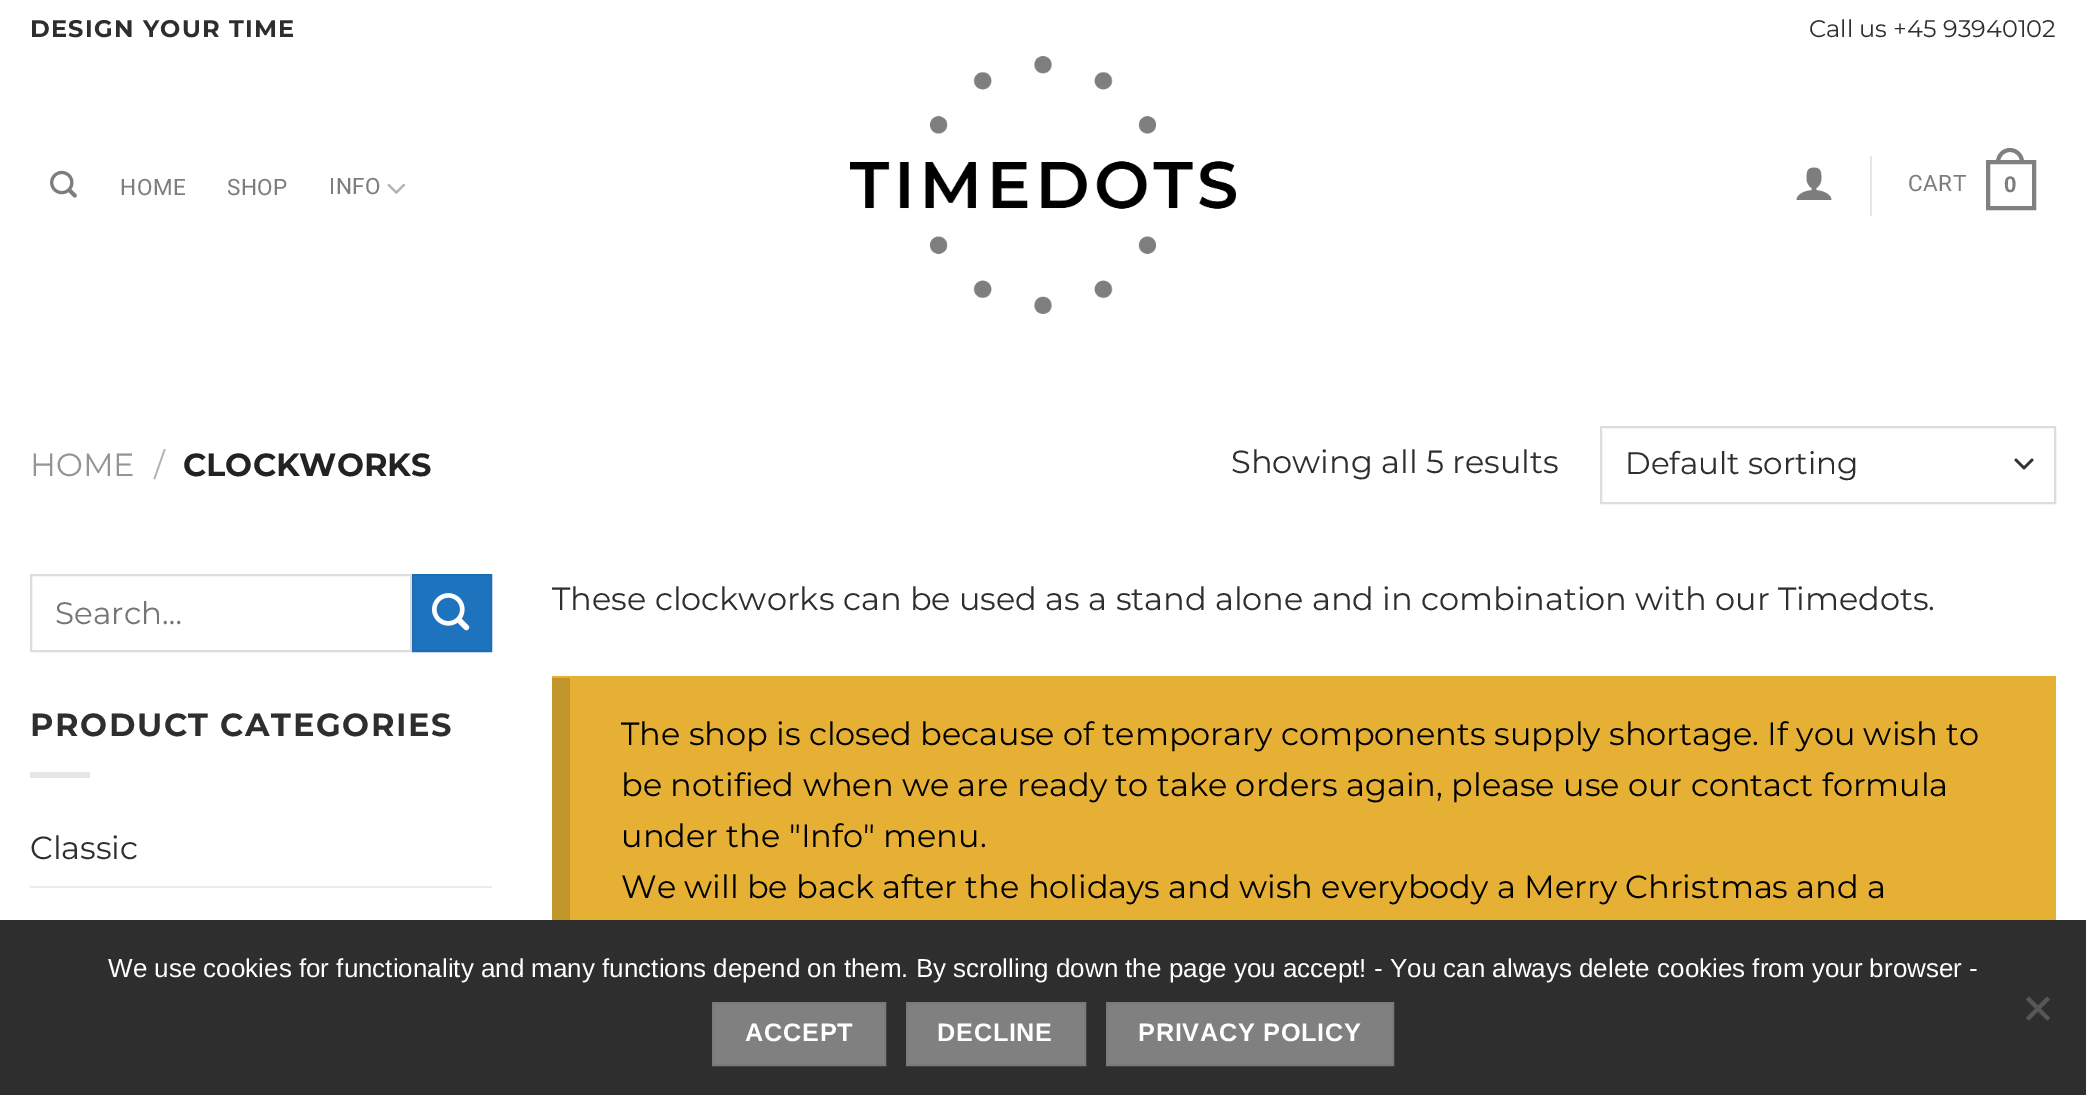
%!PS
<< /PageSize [2086 1095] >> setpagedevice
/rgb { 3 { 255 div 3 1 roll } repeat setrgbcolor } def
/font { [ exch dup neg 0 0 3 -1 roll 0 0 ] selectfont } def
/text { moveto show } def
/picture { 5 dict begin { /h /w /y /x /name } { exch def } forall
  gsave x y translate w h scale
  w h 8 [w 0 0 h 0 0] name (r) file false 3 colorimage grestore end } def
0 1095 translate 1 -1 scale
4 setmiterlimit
255 255 255 rgb
0 0 2086 1095 rectfill
(img_01.rgb) 50 170 27 28 picture
(img_02.rgb) 387 183 19 11 picture
(img_03.rgb) 850 56 386 258 picture
(img_04.rgb) 1796 167 36 33 picture
230 230 230 rgb
1870 156 2 60 rectfill
128 128 128 rgb
4 setlinewidth
1988 162 46 46 rectstroke
2010 148 moveto 7.5 0 14 6.5 14 14 rcurveto 0 2 rlineto -28 0 rlineto 0 -2 rlineto 0 -7.5 6.5 -14 14 -14 rcurveto closepath 2010 152 moveto 5.5 0 10 4.5 10 10 rcurveto 0 2 rlineto -20 0 rlineto 0 -2 rlineto 0 -5.5 4.5 -10 10 -10 rcurveto closepath eofill
51 51 51 rgb
2.7 setlinewidth
1 setlinecap
1 setlinejoin
2016 460 moveto 8 8 rlineto 8 -8 rlineto stroke
221 221 221 rgb
2 setlinewidth
0 setlinecap
0 setlinejoin
1601 427 454 76 rectstroke
31 575 380 76 rectstroke
30 115 190 rgb
413 575 moveto 78 0 rlineto 0 76 rlineto -78 0 rlineto closepath gsave fill grestore
29 109 181 rgb
stroke
(img_05.rgb) 432 593 38 38 picture
230 230 230 rgb
30 772 60 6 rectfill
236 236 236 rgb
30 886 462 2 rectfill
229 176 52 rgb
552 676 1504 244 rectfill
195 150 44 rgb
552 678 18 242 rectfill
46 46 46 rgb
0 920 2086 175 rectfill
87 87 87 rgb
2047 996.5 moveto 3 3 rlineto -21 21 rlineto -3 -2.5 rlineto closepath fill
2026 999.5 moveto 3 -3 rlineto 21 21.5 rlineto -3 2.5 rlineto closepath fill
128 128 128 rgb
713 1003 moveto 172 0 rlineto 0 62 rlineto -172 0 rlineto closepath gsave fill grestore
122 122 122 rgb
stroke
128 128 128 rgb
907 1003 moveto 178 0 rlineto 0 62 rlineto -178 0 rlineto closepath gsave fill grestore
122 122 122 rgb
stroke
128 128 128 rgb
1107 1003 moveto 286 0 rlineto 0 62 rlineto -286 0 rlineto closepath gsave fill grestore
122 122 122 rgb
stroke
/Montserrat-Bold 24 font
46 46 46 rgb
30 37 moveto 1.25 0 (DESIGN YOUR TIME) ashow
/Montserrat-Regular 24 font
(Call us +45 93940102) 1809 37 text
/Roboto-Regular 22.5 font
125 125 125 rgb
120 195 moveto 0.5 0 (HOME) ashow
227 195 moveto 0.5 0 (SHOP) ashow
329 194 moveto 0.5 0 (INFO) ashow
1908 191 moveto 0.5 0 (CART) ashow
/LiberationSans-Bold 22.5 font
2004 192 moveto 0.5 0 (0) ashow
/Montserrat-Regular 32 font
148 148 148 rgb
(HOME) 30 476 text
178 178 178 rgb
(/) 154 476 text
/Montserrat-Bold 32 font
34 34 34 rgb
(CLOCKWORKS) 183 476 text
/Montserrat-Regular 32 font
46 46 46 rgb
(Showing all 5 results) 1231 473 text
/Montserrat-Regular 31 font
(Default sorting) 1625 474 text
117 117 117 rgb
(Search…) 55 624 text
/Montserrat-Bold 32 font
46 46 46 rgb
30 736 moveto 1.6 0 (PRODUCT CATEGORIES) ashow
/Montserrat-Regular 32 font
(Classic) 30 859 text
(These clockworks can be used as a stand alone and in combination with our Timedots.) 552 610 text
0 0 0 rgb
(The shop is closed because of temporary components supply shortage. If you wish to) 621 745 text
(be notified when we are ready to take orders again, please use our contact formula) 621 796 text
(under the "Info" menu.) 621 847 text
(We will be back after the holidays and wish everybody a Merry Christmas and a) 621 898 text
/LiberationSans-Regular 26 font
255 255 255 rgb
(We use cookies for functionality and many functions depend on them. By scrolling down the page you accept! - You can always delete cookies from your browser -) 108 977 text
/LiberationSans-Bold 25.25 font
745 1041 moveto 0.75 0 (ACCEPT) ashow
937 1041 moveto 0.75 0 (DECLINE) ashow
1138 1041 moveto 0.75 0 (PRIVACY POLICY) ashow
showpage
